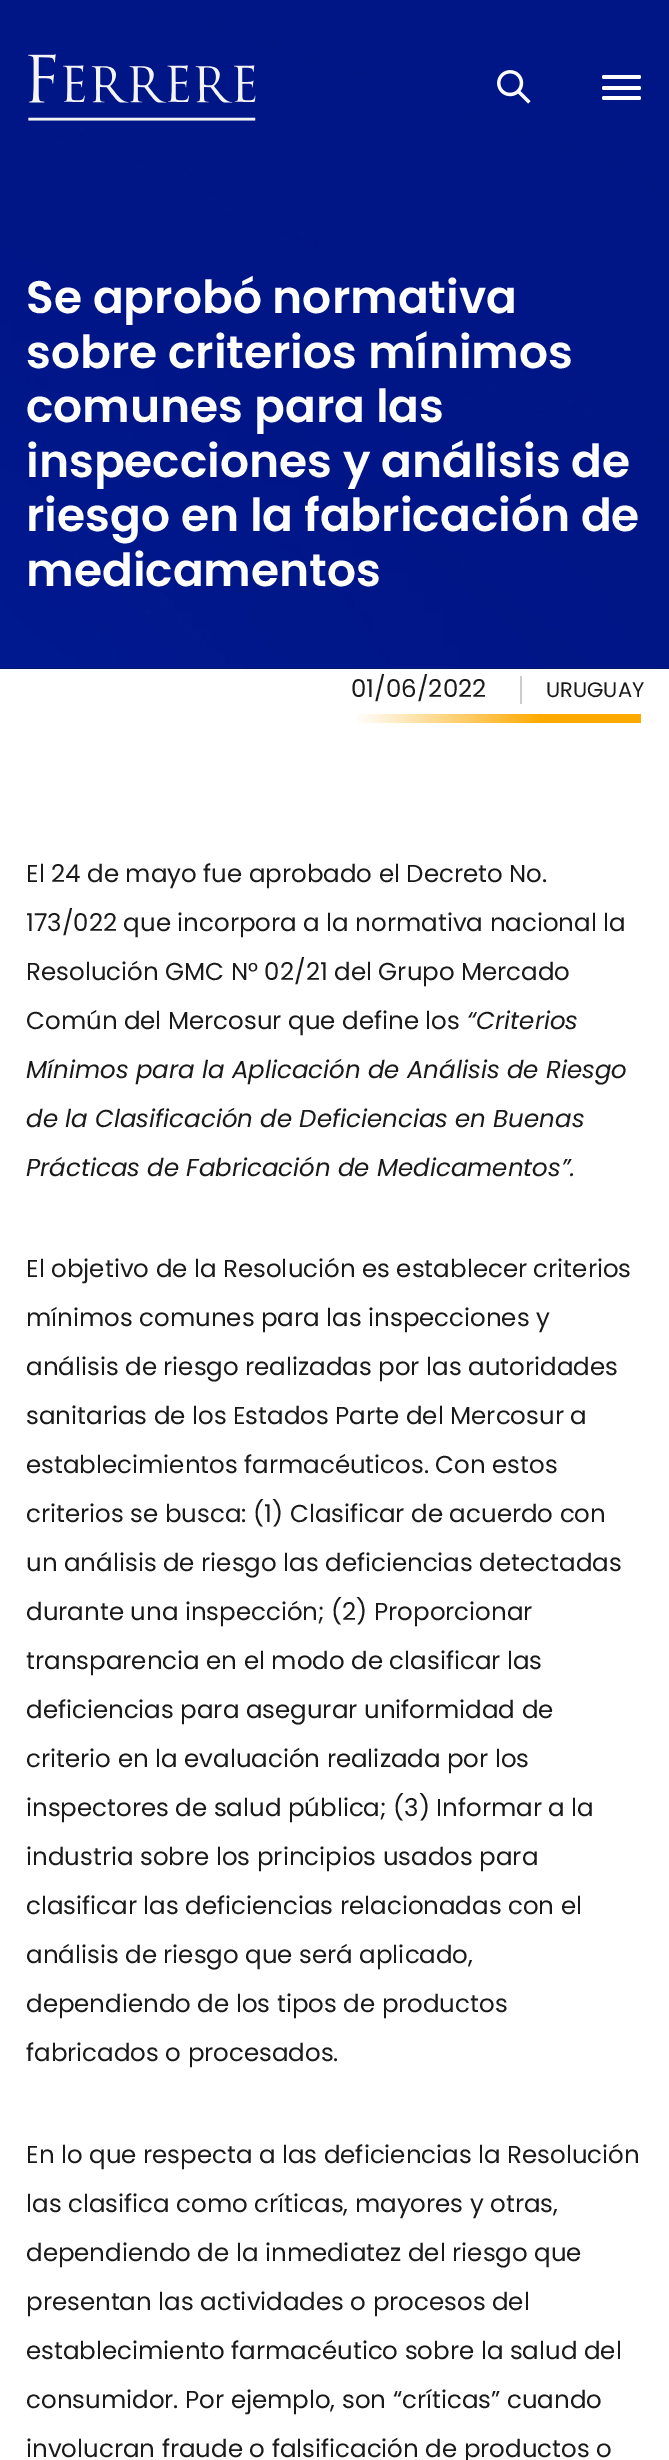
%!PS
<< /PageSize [669 2460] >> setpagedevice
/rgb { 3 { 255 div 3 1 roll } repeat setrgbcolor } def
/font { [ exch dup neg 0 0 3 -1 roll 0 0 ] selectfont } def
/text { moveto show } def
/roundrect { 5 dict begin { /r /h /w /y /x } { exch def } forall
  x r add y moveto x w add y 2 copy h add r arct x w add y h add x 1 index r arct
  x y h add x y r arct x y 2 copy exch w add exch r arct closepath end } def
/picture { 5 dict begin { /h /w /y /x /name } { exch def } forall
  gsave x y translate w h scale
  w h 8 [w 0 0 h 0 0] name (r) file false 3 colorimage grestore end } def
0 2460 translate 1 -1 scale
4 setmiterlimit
255 255 255 rgb
0 0 669 2460 rectfill
2 26 73 rgb
0 668 669 1 rectfill
(img_03.rgb) 0 0 669 669 picture
(img_01.rgb) 28 54 228 67 picture
(img_02.rgb) 497 70 34 34 picture
255 255 255 rgb
602 75 39 4 2 roundrect fill
602 86 39 4 2 roundrect fill
602 96 39 4 2 roundrect fill
204 204 204 rgb
520 676 2 28 rectfill
gsave 357 714 moveto 284 0 rlineto 0 9 rlineto -284 0 rlineto closepath clip newpath
<< /ShadingType 2 /ColorSpace /DeviceRGB /Coords [641 718 355 718] /Extend [true true] /Function << /FunctionType 3 /Domain [0 1] /Functions [<< /FunctionType 2 /Domain [0 1] /C0 [1 0.667 0] /C1 [1 0.667 0] /N 1 >> << /FunctionType 2 /Domain [0 1] /C0 [1 0.667 0] /C1 [1 1 1] /N 1 >>] /Bounds [0.35] /Encode [0 1 0 1] >> >> shfill grestore
/Poppins-SemiBold 45.5 font
255 255 255 rgb
(Se aprobó normativa) 26 313 text
(sobre criterios mínimos) 26 368 text
(comunes para las) 26 422 text
(inspecciones y análisis de) 26 477 text
(riesgo en la fabricación de) 26 531 text
(medicamentos) 26 586 text
/Poppins-Regular 24.5 font
26 26 26 rgb
(01/06/2022) 351 697 text
/Poppins-Regular 21 font
(URUGUAY) 546 697 text
/Poppins-Regular 24.5 font
(El 24 de mayo fue aprobado el Decreto No.) 26 882 text
(173/022 que incorpora a la normativa nacional la) 26 931 text
(Resolución GMC N° 02/21 del Grupo Mercado) 26 980 text
(Común del Mercosur que define los) 26 1029 text
/Poppins-Italic 24.5 font
(“Criterios) 467 1029 text
(Mínimos para la Aplicación de Análisis de Riesgo) 26 1078 text
(de la Clasificación de Deficiencias en Buenas) 26 1127 text
(Prácticas de Fabricación de Medicamentos”.) 26 1176 text
/Poppins-Regular 24.5 font
(El objetivo de la Resolución es establecer criterios) 26 1277 text
(mínimos comunes para las inspecciones y) 26 1326 text
(análisis de riesgo realizadas por las autoridades) 26 1375 text
(sanitarias de los Estados Parte del Mercosur a) 26 1424 text
(establecimientos farmacéuticos. Con estos) 26 1473 text
(criterios se busca: \(1\) Clasificar de acuerdo con) 26 1522 text
(un análisis de riesgo las deficiencias detectadas) 26 1571 text
(durante una inspección; \(2\) Proporcionar) 26 1620 text
(transparencia en el modo de clasificar las) 26 1669 text
(deficiencias para asegurar uniformidad de) 26 1718 text
(criterio en la evaluación realizada por los) 26 1767 text
(inspectores de salud pública; \(3\) Informar a la) 26 1816 text
(industria sobre los principios usados para) 26 1865 text
(clasificar las deficiencias relacionadas con el) 26 1914 text
(análisis de riesgo que será aplicado,) 26 1963 text
(dependiendo de los tipos de productos) 26 2012 text
(fabricados o procesados.) 26 2061 text
(En lo que respecta a las deficiencias la Resolución) 26 2163 text
(las clasifica como críticas, mayores y otras,) 26 2212 text
(dependiendo de la inmediatez del riesgo que) 26 2261 text
(presentan las actividades o procesos del) 26 2310 text
(establecimiento farmacéutico sobre la salud del) 26 2359 text
(consumidor. Por ejemplo, son “críticas” cuando) 26 2408 text
(involucran fraude o falsificación de productos o) 26 2457 text
showpage
